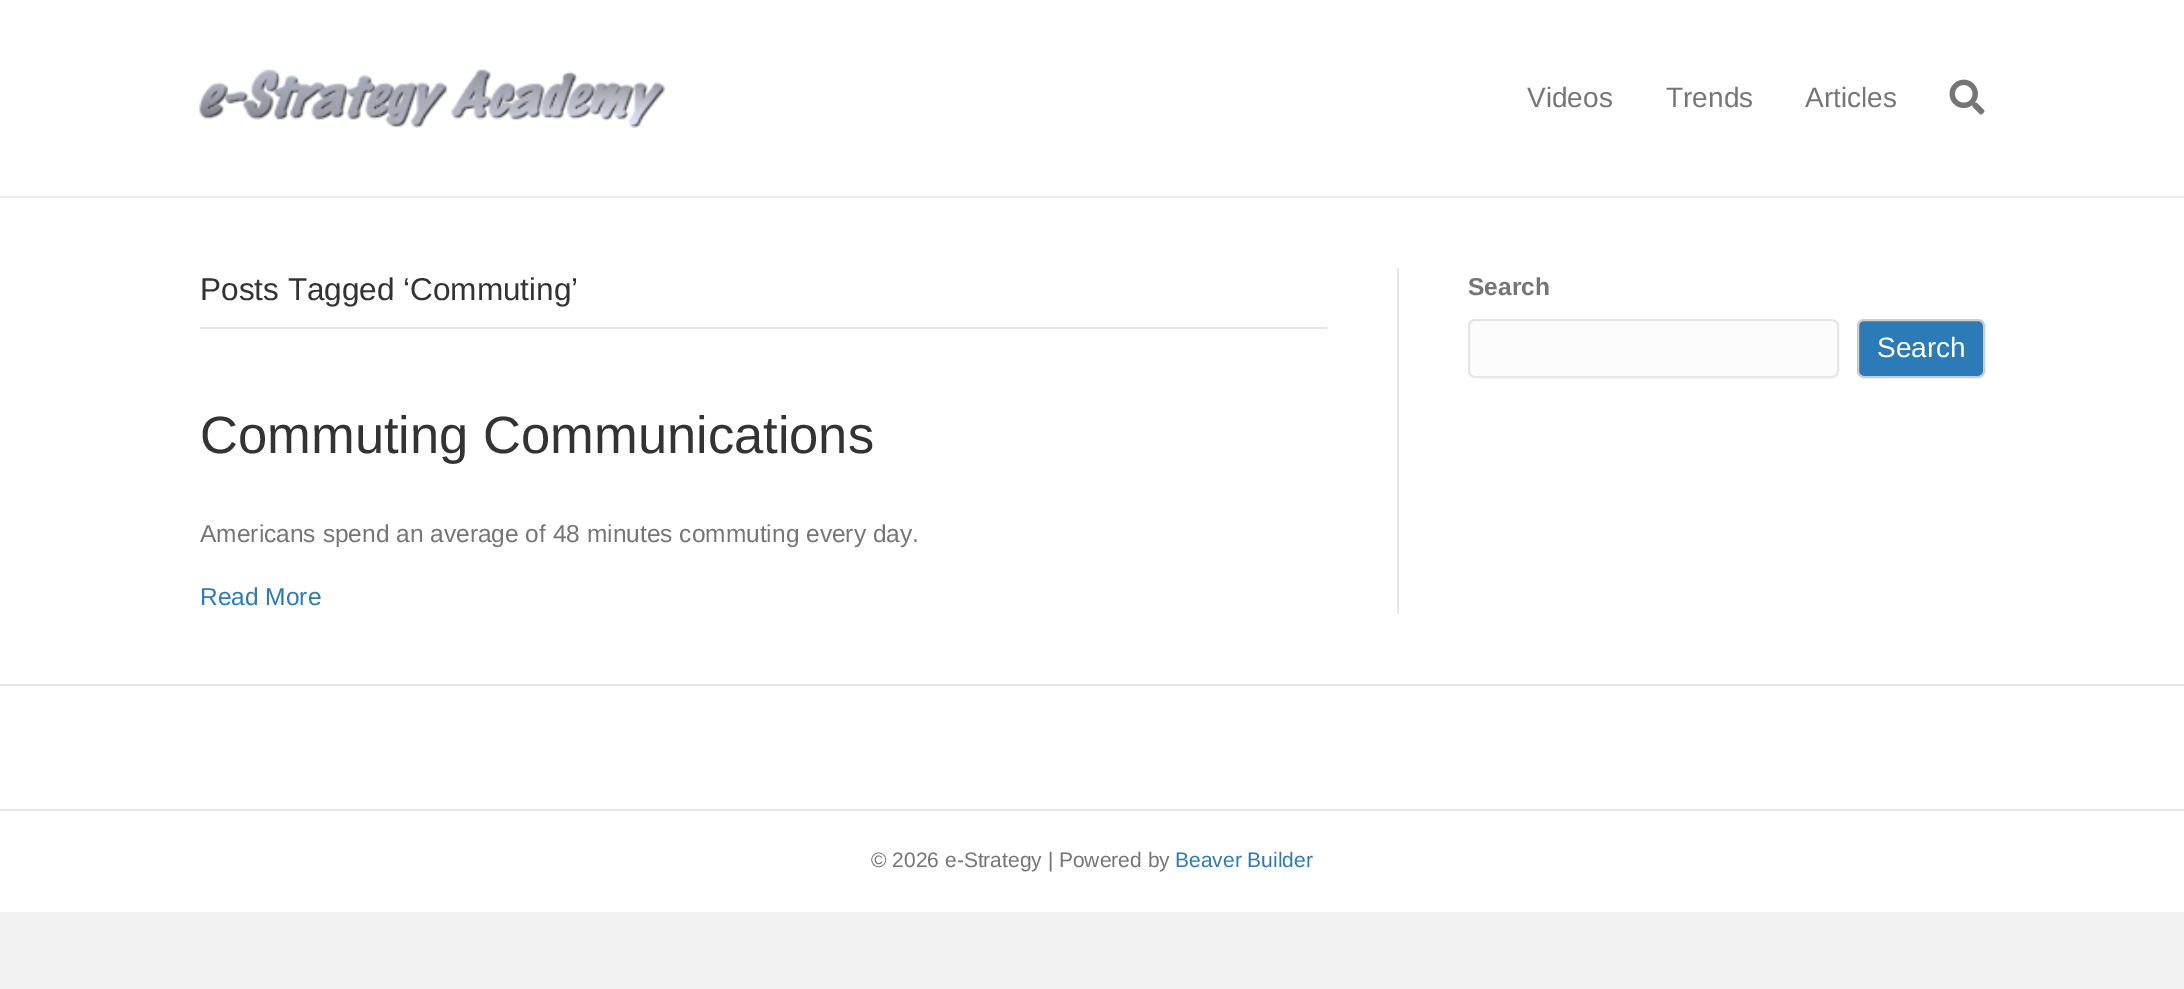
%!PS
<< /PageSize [2184 989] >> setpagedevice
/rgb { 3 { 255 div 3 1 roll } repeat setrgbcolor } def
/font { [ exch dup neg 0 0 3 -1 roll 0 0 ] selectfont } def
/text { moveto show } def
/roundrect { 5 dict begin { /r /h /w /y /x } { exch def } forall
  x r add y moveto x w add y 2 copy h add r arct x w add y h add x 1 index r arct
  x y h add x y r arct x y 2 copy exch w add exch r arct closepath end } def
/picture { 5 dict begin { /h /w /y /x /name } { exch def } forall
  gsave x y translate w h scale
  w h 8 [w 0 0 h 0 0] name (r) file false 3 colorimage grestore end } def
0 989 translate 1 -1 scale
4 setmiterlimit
242 242 242 rgb
0 0 2184 989 rectfill
255 255 255 rgb
0 0 2184 196 rectfill
237 237 237 rgb
0 196 2184 2 rectfill
(img_01.rgb) 199 69 466 59 picture
(img_02.rgb) 1949 79 36 36 picture
255 255 255 rgb
0 198 2184 486 rectfill
230 230 230 rgb
1397 268 2 346 rectfill
200 327 1127 2 rectfill
252 252 252 rgb
1469 320 369 57 6 roundrect gsave fill grestore
230 230 230 rgb
2 setlinewidth
stroke
43 123 185 rgb
1858 320 126 57 6 roundrect gsave fill grestore
204 204 204 rgb
stroke
255 255 255 rgb
0 686 2184 123 rectfill
230 230 230 rgb
0 684 2184 2 rectfill
255 255 255 rgb
0 811 2184 101 rectfill
230 230 230 rgb
0 809 2184 2 rectfill
/LiberationSans-Regular 28 font
117 117 117 rgb
(Videos) 1527 107 text
(Trends) 1666 107 text
(Articles) 1805 107 text
/LiberationSans-Regular 31.5 font
51 51 51 rgb
(Posts Tagged ‘Commuting’) 200 300 text
/LiberationSans-Regular 52.5 font
(Commuting Communications) 200 453 text
/LiberationSans-Regular 24.5 font
117 117 117 rgb
(Americans spend an average of 48 minutes commuting every day.) 200 542 text
43 123 185 rgb
(Read More) 200 605 text
/LiberationSans-Bold 24.5 font
117 117 117 rgb
(Search) 1468 295 text
/LiberationSans-Regular 28 font
255 255 255 rgb
(Search) 1877 357 text
/LiberationSans-Regular 21 font
117 117 117 rgb
(© 2026 e-Strategy | Powered by) 871 867 text
43 123 185 rgb
(Beaver Builder) 1175 867 text
showpage
